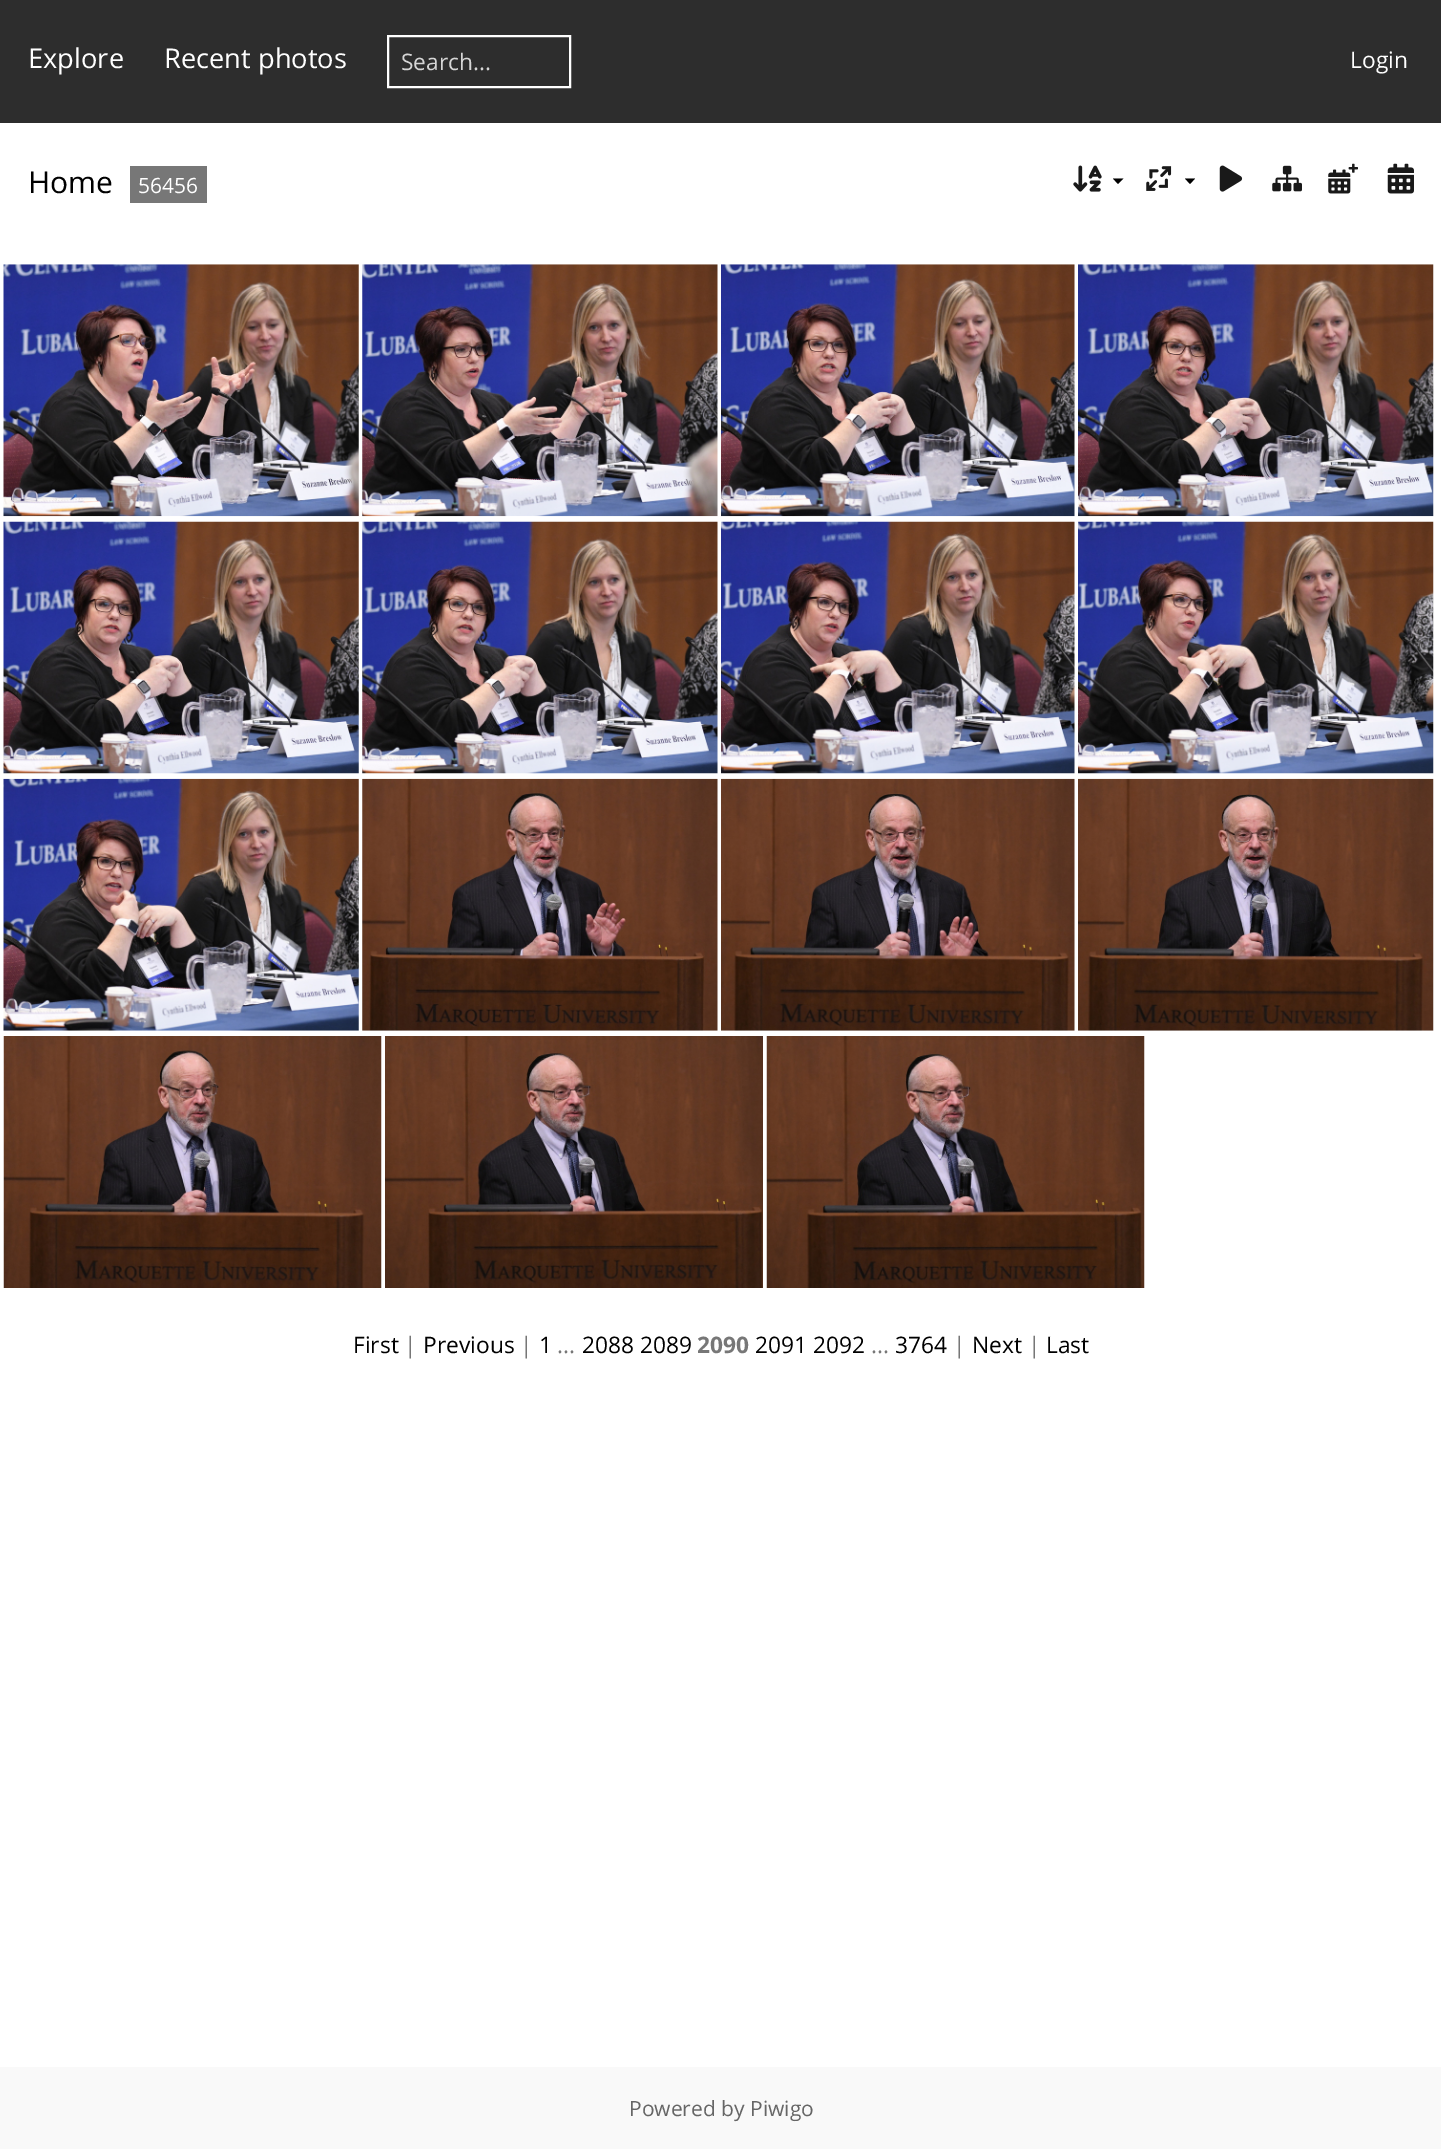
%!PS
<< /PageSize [1441 2149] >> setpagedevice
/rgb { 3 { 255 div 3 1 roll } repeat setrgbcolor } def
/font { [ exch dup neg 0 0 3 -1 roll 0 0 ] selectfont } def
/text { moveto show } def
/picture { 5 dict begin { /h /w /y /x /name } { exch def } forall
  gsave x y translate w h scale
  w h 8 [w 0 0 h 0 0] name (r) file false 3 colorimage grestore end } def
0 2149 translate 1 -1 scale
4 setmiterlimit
255 255 255 rgb
0 0 1441 2149 rectfill
45 45 45 rgb
0 0 1441 123 rectfill
255 255 255 rgb
2 setlinewidth
388 36 182 51 rectstroke
119 119 119 rgb
130 166 77 37 rectfill
(img_01.rgb) 1073 165 29 27 picture
0 0 0 rgb
1113 178.5 moveto 10.5 0 rlineto -5.5 5.5 rlineto closepath fill
(img_02.rgb) 1146 166 26 25 picture
1185 178.5 moveto 10 0 rlineto -5 5.5 rlineto closepath fill
(img_03.rgb) 1219 165 24 27 picture
(img_04.rgb) 1272 165 30 27 picture
(img_05.rgb) 1328 163 30 31 picture
(img_06.rgb) 1387 163 27 31 picture
(img_07.rgb) 3 264 356 253 picture
(img_08.rgb) 362 264 356 253 picture
(img_09.rgb) 721 264 354 253 picture
(img_10.rgb) 1078 264 356 253 picture
(img_11.rgb) 3 521 356 253 picture
(img_12.rgb) 362 521 356 253 picture
(img_13.rgb) 721 521 354 253 picture
(img_14.rgb) 1078 521 356 253 picture
(img_15.rgb) 3 778 356 253 picture
(img_16.rgb) 362 778 356 253 picture
(img_17.rgb) 721 778 354 253 picture
(img_18.rgb) 1078 778 356 253 picture
(img_19.rgb) 3 1036 379 252 picture
(img_20.rgb) 385 1036 378 252 picture
(img_21.rgb) 766 1036 379 252 picture
249 249 249 rgb
0 2067 1441 82 rectfill
/OpenSans-Regular 27.25 font
255 255 255 rgb
(Explore) 28 68 text
(Recent photos) 164 68 text
/OpenSans-Regular 22.75 font
214 214 214 rgb
(Search...) 401 70 text
255 255 255 rgb
(Login) 1350 68 text
/OpenSans-Regular 30 font
0 0 0 rgb
(Home) 28 193 text
/OpenSans-Regular 21 font
255 255 255 rgb
(56456) 138 193 text
/OpenSans-Regular 22.75 font
0 0 0 rgb
(First) 353 1353 text
119 119 119 rgb
(|) 404 1353 text
0 0 0 rgb
(Previous) 423 1353 text
119 119 119 rgb
(|) 520 1353 text
0 0 0 rgb
(1) 539 1353 text
119 119 119 rgb
(...) 557 1353 text
0 0 0 rgb
(2088 2089) 582 1353 text
/OpenSans-Bold 22.75 font
119 119 119 rgb
(2090) 697 1353 text
/OpenSans-Regular 22.75 font
0 0 0 rgb
(2091 2092) 755 1353 text
119 119 119 rgb
(...) 871 1353 text
0 0 0 rgb
(3764) 895 1353 text
119 119 119 rgb
(|) 953 1353 text
0 0 0 rgb
(Next) 972 1353 text
119 119 119 rgb
(|) 1028 1353 text
0 0 0 rgb
(Last) 1046 1353 text
/OpenSans-Regular 21 font
102 102 102 rgb
(Powered by Piwigo) 629 2116 text
showpage
